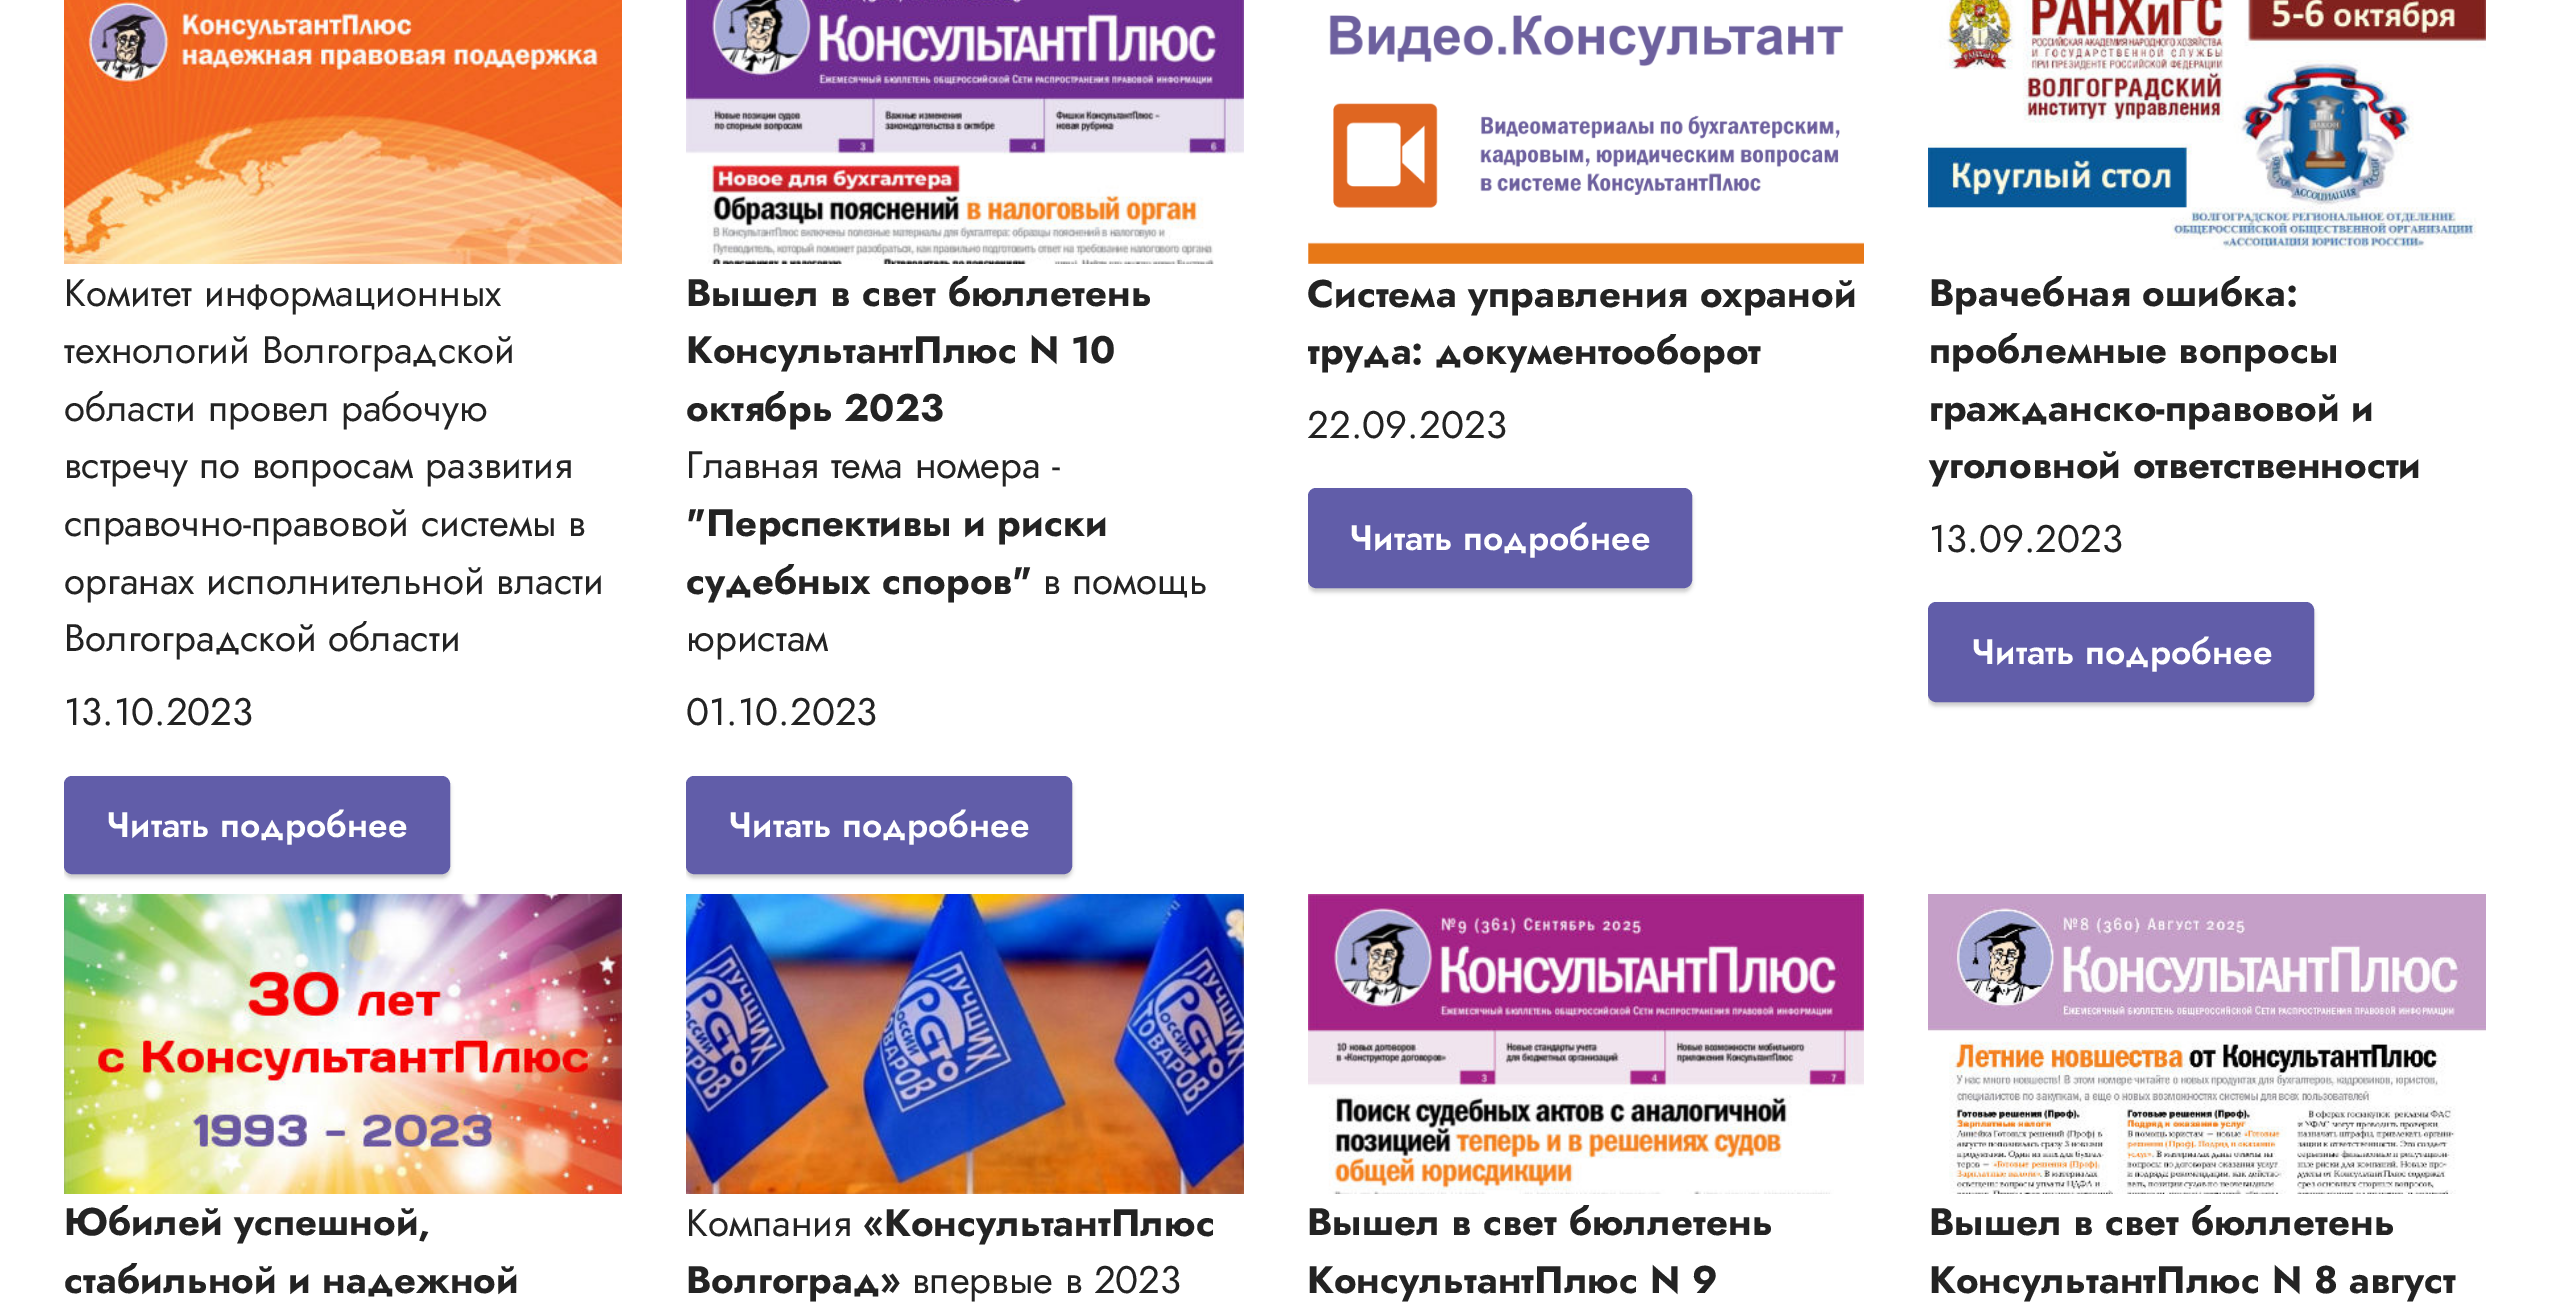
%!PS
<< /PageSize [2550 1308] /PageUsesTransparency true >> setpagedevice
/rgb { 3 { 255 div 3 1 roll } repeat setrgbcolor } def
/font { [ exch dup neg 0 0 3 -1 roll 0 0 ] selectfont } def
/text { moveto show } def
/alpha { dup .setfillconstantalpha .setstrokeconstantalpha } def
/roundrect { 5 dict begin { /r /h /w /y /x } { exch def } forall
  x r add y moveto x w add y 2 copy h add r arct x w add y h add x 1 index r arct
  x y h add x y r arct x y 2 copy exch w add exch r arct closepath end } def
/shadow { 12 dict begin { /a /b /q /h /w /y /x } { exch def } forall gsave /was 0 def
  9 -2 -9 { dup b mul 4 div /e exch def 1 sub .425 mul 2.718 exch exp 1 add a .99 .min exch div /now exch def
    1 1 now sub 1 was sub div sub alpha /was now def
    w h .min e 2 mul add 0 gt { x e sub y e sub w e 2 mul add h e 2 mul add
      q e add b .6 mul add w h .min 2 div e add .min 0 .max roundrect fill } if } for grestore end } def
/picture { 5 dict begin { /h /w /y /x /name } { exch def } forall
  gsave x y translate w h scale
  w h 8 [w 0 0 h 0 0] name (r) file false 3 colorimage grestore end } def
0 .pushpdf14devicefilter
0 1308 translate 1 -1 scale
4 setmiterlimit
255 255 255 rgb
0 0 2550 1308 rectfill
(img_01.rgb) 64 0 558 264 picture
gsave
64 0 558 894 rectclip
0 0 0 rgb
64 780 386 98 8 2 0.2 shadow
grestore
97 93 169 rgb
66 778 382 94 6 roundrect gsave fill grestore
4 setlinewidth
stroke
(img_02.rgb) 686 0 558 264 picture
gsave
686 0 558 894 rectclip
0 0 0 rgb
686 780 386 98 8 2 0.2 shadow
grestore
688 778 382 94 6 roundrect gsave fill grestore
stroke
(img_03.rgb) 1308 15 556 249 picture
gsave
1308 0 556 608 rectclip
0 0 0 rgb
1308 492 384 100 8 2 0.2 shadow
grestore
1310 490 380 96 6 roundrect gsave fill grestore
stroke
(img_04.rgb) 1928 0 558 250 picture
gsave
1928 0 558 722 rectclip
0 0 0 rgb
1928 606 386 100 8 2 0.2 shadow
grestore
1930 604 382 96 6 roundrect gsave fill grestore
stroke
(img_05.rgb) 64 894 558 300 picture
(img_06.rgb) 686 894 558 300 picture
(img_07.rgb) 1308 894 556 300 picture
(img_08.rgb) 1928 894 558 300 picture
/Jost-Regular 38.4 font
35 35 35 rgb
(Комитет информационных) 64 306 text
(технологий Волгоградской) 64 363 text
(области провел рабочую) 64 421 text
(встречу по вопросам развития) 64 478 text
(справочно-правовой системы в) 64 536 text
(органах исполнительной власти) 64 594 text
(Волгоградской области) 64 651 text
(13.10.2023) 64 725 text
/Jost-SemiBold 35.25 font
255 255 255 rgb
(Читать подробнее) 106 837 text
/Jost-Bold 38.4 font
35 35 35 rgb
(Вышел в свет бюллетень) 686 306 text
(КонсультантПлюс N 10) 686 363 text
(октябрь 2023) 686 421 text
/Jost-Regular 38.4 font
(Главная тема номера -) 686 478 text
/Jost-Bold 38.4 font
("Перспективы и риски) 686 536 text
(судебных споров") 686 594 text
/Jost-Regular 38.4 font
(в помощь) 1043 594 text
(юристам) 686 651 text
(01.10.2023) 686 725 text
/Jost-SemiBold 35.25 font
255 255 255 rgb
(Читать подробнее) 728 837 text
/Jost-Bold 38.4 font
35 35 35 rgb
(Система управления охраной) 1307 307 text
gsave
1308 0 556 608 rectclip
(труда: документооборот) 1307 364 text
grestore
/Jost-Regular 38.4 font
(22.09.2023) 1307 438 text
/Jost-SemiBold 35.25 font
255 255 255 rgb
(Читать подробнее) 1349 550 text
/Jost-Bold 38.4 font
35 35 35 rgb
(Врачебная ошибка:) 1929 306 text
(проблемные вопросы) 1929 363 text
(гражданско-правовой и) 1929 421 text
(уголовной ответственности) 1929 478 text
/Jost-Regular 38.4 font
(13.09.2023) 1929 552 text
/Jost-SemiBold 35.25 font
255 255 255 rgb
(Читать подробнее) 1971 664 text
/Jost-Bold 38.4 font
35 35 35 rgb
(Юбилей успешной,) 64 1235 text
(стабильной и надежной) 64 1293 text
/Jost-Regular 38.4 font
(Компания) 686 1236 text
/Jost-Bold 38.4 font
(«КонсультантПлюс) 863 1236 text
(Волгоград») 686 1293 text
/Jost-Regular 38.4 font
(впервые в 2023) 912 1293 text
/Jost-Bold 38.4 font
(Вышел в свет бюллетень) 1307 1235 text
(КонсультантПлюс N 9) 1307 1293 text
(Вышел в свет бюллетень) 1929 1235 text
(КонсультантПлюс N 8 август) 1929 1293 text
.poppdf14devicefilter showpage
